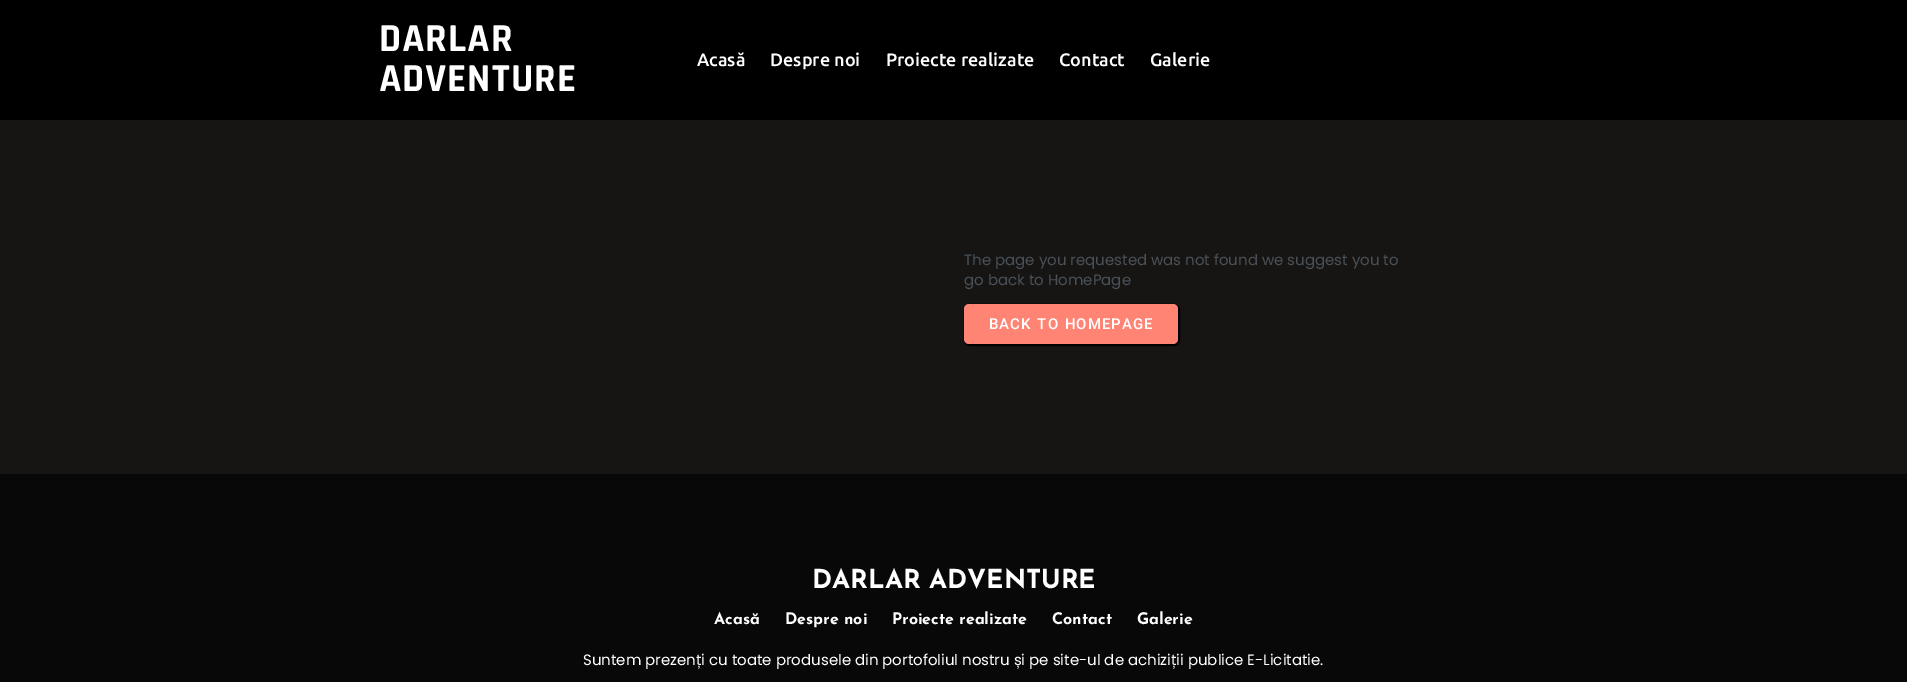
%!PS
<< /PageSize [1907 682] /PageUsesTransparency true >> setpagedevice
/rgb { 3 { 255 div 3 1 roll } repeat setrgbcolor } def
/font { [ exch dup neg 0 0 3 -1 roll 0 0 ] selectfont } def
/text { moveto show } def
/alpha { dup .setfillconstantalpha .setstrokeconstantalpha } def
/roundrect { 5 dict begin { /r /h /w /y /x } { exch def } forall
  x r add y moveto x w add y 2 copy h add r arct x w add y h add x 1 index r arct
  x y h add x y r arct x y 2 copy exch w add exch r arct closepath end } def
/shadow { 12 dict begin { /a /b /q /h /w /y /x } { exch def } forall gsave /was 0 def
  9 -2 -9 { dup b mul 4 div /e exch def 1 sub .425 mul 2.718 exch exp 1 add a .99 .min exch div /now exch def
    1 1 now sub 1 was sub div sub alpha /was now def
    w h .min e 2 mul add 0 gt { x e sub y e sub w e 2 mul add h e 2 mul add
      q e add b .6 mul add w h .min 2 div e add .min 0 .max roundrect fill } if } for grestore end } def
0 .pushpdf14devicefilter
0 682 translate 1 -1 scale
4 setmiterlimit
22 21 19 rgb
0 0 1907 682 rectfill
0 0 0 rgb
0 0 1907 120 rectfill
964 304 216 42 6 0.5 1 shadow
255 132 116 rgb
964 304 214 40 5 roundrect fill
8 8 8 rgb
0 474 1907 208 rectfill
/Rajdhani-Bold 40 font
255 255 255 rgb
379 51 moveto 1 0 (DARLAR) ashow
379 91 moveto 1 0 (ADVENTURE) ashow
/Ubuntu-Medium 18 font
(Acasă) 697 66 text
(Despre noi) 770 66 text
(Proiecte realizate) 886 66 text
(Contact) 1059 66 text
(Galerie) 1150 66 text
/Poppins-Regular 15 font
73 80 87 rgb
(The page you requested was not found we suggest you to) 964 265 text
(go back to HomePage) 964 285 text
/Roboto-Medium 15 font
255 255 255 rgb
989 329 moveto 1 0 32 1 0 (BACK TO HOMEPAGE) awidthshow
/JosefinSans-Bold 26 font
(DARLAR ADVENTURE) 812 588 text
/JosefinSans-Bold 16 font
(Acasă) 714 624 text
(Despre noi) 785 624 text
(Proiecte realizate) 892 624 text
(Contact) 1052 624 text
(Galerie) 1137 624 text
/Poppins-Regular 15 font
(Suntem prezenți cu toate produsele din portofoliul nostru și pe site-ul de achiziții publice E-Licitatie.) 583 665 text
.poppdf14devicefilter showpage
